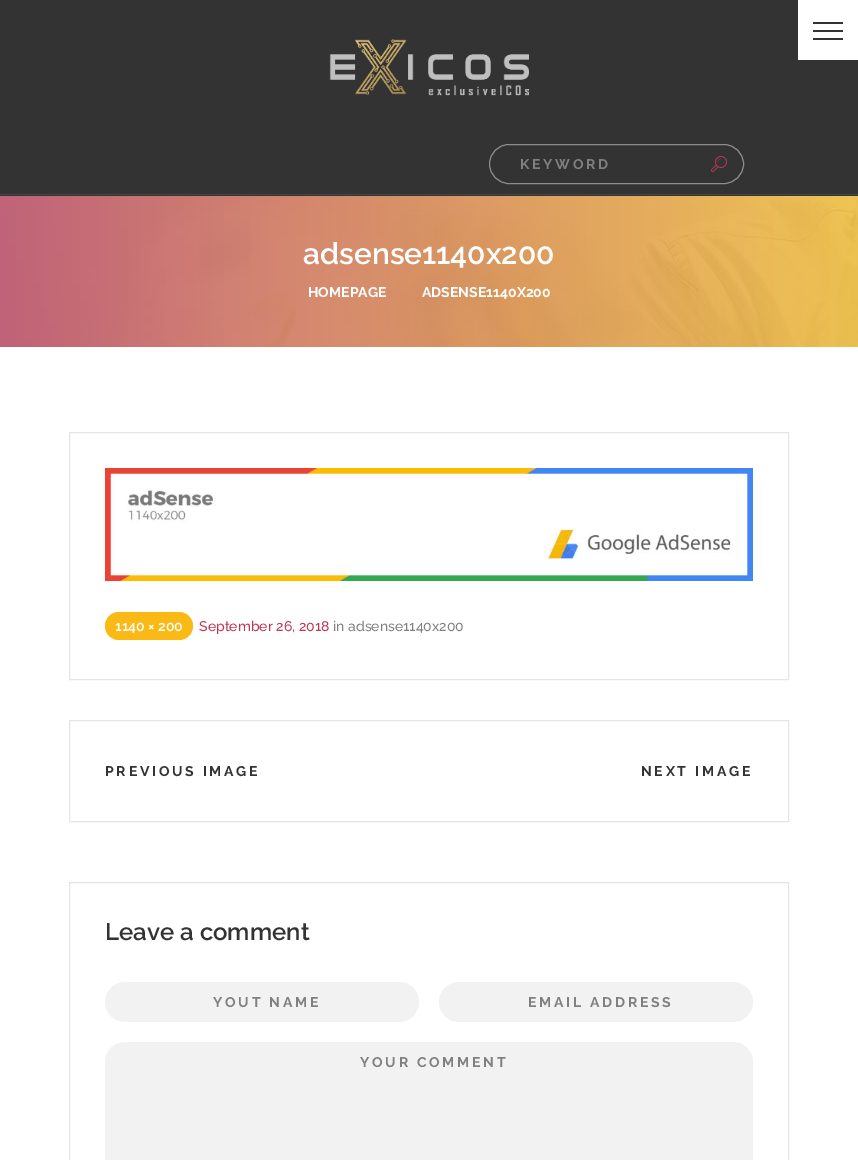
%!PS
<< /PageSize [858 1160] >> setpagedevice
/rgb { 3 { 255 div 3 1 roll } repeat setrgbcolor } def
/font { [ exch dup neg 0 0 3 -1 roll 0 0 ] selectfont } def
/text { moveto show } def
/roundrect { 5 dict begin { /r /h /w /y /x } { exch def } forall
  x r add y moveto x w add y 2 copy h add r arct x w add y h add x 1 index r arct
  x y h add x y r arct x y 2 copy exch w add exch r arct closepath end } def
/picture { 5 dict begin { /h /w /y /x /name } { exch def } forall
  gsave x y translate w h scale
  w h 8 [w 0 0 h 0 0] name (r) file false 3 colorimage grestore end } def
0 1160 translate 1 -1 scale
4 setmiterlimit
255 255 255 rgb
0 0 858 1160 rectfill
51 51 51 rgb
0 0 858 194 rectfill
255 255 255 rgb
798 0 60 60 rectfill
51 51 51 rgb
813 22 30 2 rectfill
813 38 30 2 rectfill
813 30 30 2 rectfill
(img_01.rgb) 329 39 200 57 picture
140 140 140 rgb
489.5 144.5 254 39 19.5 roundrect stroke
(img_02.rgb) 711 156 16 16 picture
51 51 51 rgb
0 195 858 1 rectfill
71 71 71 rgb
0 194 858 1 rectfill
(img_03.rgb) 0 196 858 151 picture
229 229 229 rgb
69.5 432.5 719 247 rectstroke
(img_04.rgb) 105 468 648 113 picture
250 185 21 rgb
105 612 88 28 14 roundrect fill
229 229 229 rgb
69.5 720.5 719 101 rectstroke
69.5 882.5 719 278 rectstroke
242 242 242 rgb
105 982 314 40 20 roundrect fill
439 982 314 40 20 roundrect fill
105 1042 648 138 20 roundrect fill
/Raleway-Bold 14 font
128 128 128 rgb
520 169 moveto 2.75 0 (KEYWORD) ashow
/Raleway-SemiBold 30 font
255 255 255 rgb
(adsense1140x200) 303 264 text
/Raleway-Bold 14 font
(HOMEPAGE) 308 297 text
(ADSENSE1140X200) 422 297 text
/Raleway-SemiBold 14 font
(1140 × 200) 115 631 text
/Raleway-Medium 14 font
191 54 84 rgb
(September 26, 2018) 199 631 text
128 128 128 rgb
(in adsense1140x200) 333 631 text
/Raleway-Bold 14 font
51 51 51 rgb
105 776 moveto 2.75 0 (PREVIOUS IMAGE) ashow
641 776 moveto 2.75 0 (NEXT IMAGE) ashow
/Raleway-SemiBold 24 font
(Leave a comment) 105 940 text
/Raleway-Bold 14 font
128 128 128 rgb
213 1007 moveto 2.75 0 (YOUT NAME) ashow
528 1007 moveto 2.75 0 (EMAIL ADDRESS) ashow
360 1067 moveto 2.75 0 (YOUR COMMENT) ashow
showpage
